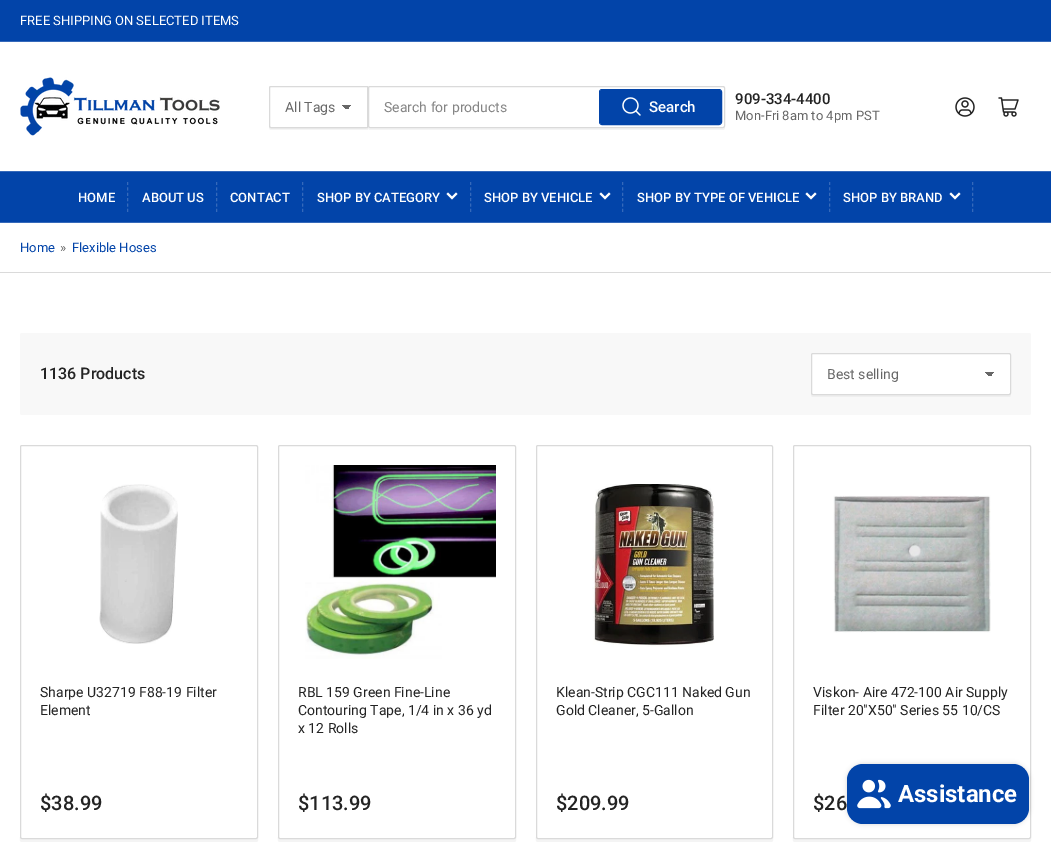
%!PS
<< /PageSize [1051 845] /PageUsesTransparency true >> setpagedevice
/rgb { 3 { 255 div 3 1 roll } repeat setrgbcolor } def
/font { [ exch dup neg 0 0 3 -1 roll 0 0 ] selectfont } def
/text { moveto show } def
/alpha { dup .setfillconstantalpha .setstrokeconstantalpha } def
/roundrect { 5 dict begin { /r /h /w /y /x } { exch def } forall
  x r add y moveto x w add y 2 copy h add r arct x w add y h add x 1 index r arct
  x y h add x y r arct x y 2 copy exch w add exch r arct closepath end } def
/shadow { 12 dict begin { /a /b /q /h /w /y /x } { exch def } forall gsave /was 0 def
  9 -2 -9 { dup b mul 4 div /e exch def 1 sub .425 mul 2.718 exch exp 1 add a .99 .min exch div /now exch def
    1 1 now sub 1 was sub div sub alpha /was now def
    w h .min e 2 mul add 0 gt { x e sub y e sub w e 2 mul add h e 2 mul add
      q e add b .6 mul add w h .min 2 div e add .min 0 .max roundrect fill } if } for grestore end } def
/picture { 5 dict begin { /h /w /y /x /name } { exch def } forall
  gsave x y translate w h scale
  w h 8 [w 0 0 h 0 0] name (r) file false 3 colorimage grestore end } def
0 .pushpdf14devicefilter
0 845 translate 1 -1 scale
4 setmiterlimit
255 255 255 rgb
0 0 1051 845 rectfill
2 68 169 rgb
0 0 1051 41 rectfill
53 105 186 rgb
0 41 1051 1 rectfill
(img_01.rgb) 20 77 200 59 picture
218 218 218 rgb
269.5 86.5 98 41 1.5 roundrect stroke
0.3 alpha
269 126 moveto 0 2 rlineto 0 1 1 2 2 2 rcurveto 97 0 rlineto 0 -2 rlineto -97 0 rlineto -1 0 -2 -1 -2 -2 rcurveto closepath fill
1 alpha
255 255 255 rgb
271 86 moveto 97 0 rlineto 0 42 rlineto -97 0 rlineto -1 0 -2 -1 -2 -2 rcurveto 0 -38 rlineto 0 -1 1 -2 2 -2 rcurveto closepath fill
gsave 347 105 moveto 5 0 rlineto 0 4 rlineto -5 0 rlineto closepath clip newpath
<< /ShadingType 2 /ColorSpace /DeviceRGB /Coords [347 105 352 110] /Extend [true true] /Function << /FunctionType 3 /Domain [0 1] /Functions [<< /FunctionType 2 /Domain [0 1] /C0 [0.404 0.404 0.404] /C1 [0.404 0.404 0.404] /N 1 >> << /FunctionType 2 /Domain [0 1] /C0 [1 1 1] /C1 [1 1 1] /N 1 >>] /Bounds [0.5] /Encode [0 1 0 1] >> >> shfill grestore
gsave 342 105 moveto 5 0 rlineto 0 4 rlineto -5 0 rlineto closepath clip newpath
<< /ShadingType 2 /ColorSpace /DeviceRGB /Coords [342 110 347 105] /Extend [true true] /Function << /FunctionType 3 /Domain [0 1] /Functions [<< /FunctionType 2 /Domain [0 1] /C0 [1 1 1] /C1 [1 1 1] /N 1 >> << /FunctionType 2 /Domain [0 1] /C0 [0.404 0.404 0.404] /C1 [0.404 0.404 0.404] /N 1 >>] /Bounds [0.5] /Encode [0 1 0 1] >> >> shfill grestore
218 218 218 rgb
271 86.5 moveto 96.5 0 rlineto 0 41 rlineto -96.5 0 rlineto -1 0 -1.5 -0.5 -1.5 -1.5 rcurveto 0 -38 rlineto 0 -1 0.5 -1.5 1.5 -1.5 rcurveto closepath stroke
244 244 244 rgb
368 126 moveto 0 2 rlineto 0 1 1 2 2 2 rcurveto 353 0 rlineto 1 0 2 -1 2 -2 rcurveto 0 -2 rlineto 0 1 -1 2 -2 2 rcurveto -353 0 rlineto -1 0 -2 -1 -2 -2 rcurveto closepath fill
218 218 218 rgb
368.5 86.5 356 41 1.5 roundrect stroke
2 68 169 rgb
599.5 89.5 122 35 2.5 roundrect stroke
600 90 121 34 2 roundrect fill
(img_02.rgb) 622 97 19 19 picture
(img_03.rgb) 955 97 20 20 picture
(img_04.rgb) 998 97 21 20 picture
0 172 1051 50 rectfill
53 105 186 rgb
0 171 1051 1 rectfill
0 222 1051 1 rectfill
[3 2.4] 0 setdash
127.5 182 moveto 0 30 rlineto stroke
216.5 182 moveto 0 30 rlineto stroke
302.5 182 moveto 0 30 rlineto stroke
255 255 255 rgb
2 setlinewidth
2 setlinecap
[] 0 setdash
456 194 moveto -4 4 rlineto -4 -4 rlineto stroke
53 105 186 rgb
1 setlinewidth
0 setlinecap
[3 2.4] 0 setdash
470.5 182 moveto 0 30 rlineto stroke
255 255 255 rgb
2 setlinewidth
2 setlinecap
[] 0 setdash
609 194 moveto -4 4 rlineto -4 -4 rlineto stroke
53 105 186 rgb
1 setlinewidth
0 setlinecap
[3 2.4] 0 setdash
622.5 182 moveto 0 30 rlineto stroke
255 255 255 rgb
2 setlinewidth
2 setlinecap
[] 0 setdash
815 194 moveto -4 4 rlineto -4 -4 rlineto stroke
53 105 186 rgb
1 setlinewidth
0 setlinecap
[3 2.4] 0 setdash
829.5 182 moveto 0 30 rlineto stroke
255 255 255 rgb
2 setlinewidth
2 setlinecap
[] 0 setdash
959 194 moveto -4 4 rlineto -4 -4 rlineto stroke
53 105 186 rgb
1 setlinewidth
0 setlinecap
[3 2.4] 0 setdash
972.5 182 moveto 0 30 rlineto stroke
218 218 218 rgb
0 272 1051 1 rectfill
248 248 248 rgb
20 333 1011 82 2 roundrect fill
239 239 239 rgb
811 393 moveto 0 2 0 4 2 4 rcurveto 196 0 rlineto 2 0 2 -2 2 -4 rcurveto 0 1 -1 2 -2 2 rcurveto -196 0 rlineto -1 0 -2 -1 -2 -2 rcurveto closepath fill
255 255 255 rgb
812 354 198 40 1 roundrect fill
gsave 990 372 moveto 5 0 rlineto 0 4 rlineto -5 0 rlineto closepath clip newpath
<< /ShadingType 2 /ColorSpace /DeviceRGB /Coords [990 372 995 377] /Extend [true true] /Function << /FunctionType 3 /Domain [0 1] /Functions [<< /FunctionType 2 /Domain [0 1] /C0 [0.404 0.404 0.404] /C1 [0.404 0.404 0.404] /N 1 >> << /FunctionType 2 /Domain [0 1] /C0 [1 1 1] /C1 [1 1 1] /N 1 >>] /Bounds [0.5] /Encode [0 1 0 1] >> >> shfill grestore
gsave 985 372 moveto 5 0 rlineto 0 4 rlineto -5 0 rlineto closepath clip newpath
<< /ShadingType 2 /ColorSpace /DeviceRGB /Coords [985 377 990 372] /Extend [true true] /Function << /FunctionType 3 /Domain [0 1] /Functions [<< /FunctionType 2 /Domain [0 1] /C0 [1 1 1] /C1 [1 1 1] /N 1 >> << /FunctionType 2 /Domain [0 1] /C0 [0.404 0.404 0.404] /C1 [0.404 0.404 0.404] /N 1 >>] /Bounds [0.5] /Encode [0 1 0 1] >> >> shfill grestore
218 218 218 rgb
[] 0 setdash
811.5 353.5 199 41 1.5 roundrect stroke
244 244 244 rgb
20 837 moveto 0 2 -1 5 2 5 rcurveto 234 0 rlineto 3 0 2 -3 2 -5 rcurveto 0 1 -1 2 -2 2 rcurveto -234 0 rlineto -1 0 -2 -1 -2 -2 rcurveto closepath fill
218 218 218 rgb
20.5 445.5 237 393 1.5 roundrect stroke
(img_05.rgb) 99 484 79 160 picture
244 244 244 rgb
278 837 moveto 0 2 -1 5 2 5 rcurveto 234 0 rlineto 3 0 2 -3 2 -5 rcurveto 0 1 -1 2 -2 2 rcurveto -234 0 rlineto -1 0 -2 -1 -2 -2 rcurveto closepath fill
218 218 218 rgb
278.5 445.5 237 393 1.5 roundrect stroke
(img_06.rgb) 305 465 191 194 picture
244 244 244 rgb
536 837 moveto 0 2 -1 5 2 5 rcurveto 233 0 rlineto 3 0 2 -3 2 -5 rcurveto 0 1 -1 2 -2 2 rcurveto -233 0 rlineto -1 0 -2 -1 -2 -2 rcurveto closepath fill
218 218 218 rgb
536.5 445.5 236 393 1.5 roundrect stroke
(img_07.rgb) 592 484 122 163 picture
244 244 244 rgb
793 837 moveto 0 2 -1 5 2 5 rcurveto 234 0 rlineto 3 0 2 -3 2 -5 rcurveto 0 1 -1 2 -2 2 rcurveto -234 0 rlineto -1 0 -2 -1 -2 -2 rcurveto closepath fill
218 218 218 rgb
793.5 445.5 237 393 1.5 roundrect stroke
(img_08.rgb) 833 495 158 138 picture
0 0 0 rgb
847 764 182 60 16 2.5 0.15 shadow
2 68 169 rgb
847 764 182 60 16 roundrect fill
(img_09.rgb) 857 779 34 30 picture
/Roboto-Regular 13 font
255 255 255 rgb
(FREE SHIPPING ON SELECTED ITEMS) 20 25 text
/Roboto-Regular 14 font
103 103 103 rgb
(All Tags) 285 112 text
133 133 133 rgb
(Search for products) 384 112 text
/Roboto-Medium 15 font
255 255 255 rgb
(Search) 649 112 text
35 35 35 rgb
(909-334-4400) 735 104 text
/Roboto-Regular 13 font
103 103 103 rgb
(Mon-Fri 8am to 4pm PST) 735 120 text
/Roboto-Medium 13 font
255 255 255 rgb
(HOME) 78 202 text
(ABOUT US) 142 202 text
(CONTACT) 230 202 text
(SHOP BY CATEGORY) 317 202 text
(SHOP BY VEHICLE) 484 202 text
(SHOP BY TYPE OF VEHICLE) 637 202 text
(SHOP BY BRAND) 843 202 text
/Roboto-Regular 13 font
2 68 169 rgb
(Home) 20 252 text
103 103 103 rgb
(») 60 252 text
2 68 169 rgb
(Flexible Hoses) 72 252 text
/Roboto-Medium 16 font
35 35 35 rgb
(1136 Products) 40 379 text
/Roboto-Regular 14 font
103 103 103 rgb
(Best selling) 827 379 text
35 35 35 rgb
(Sharpe U32719 F88-19 Filter) 40 697 text
(Element) 40 715 text
/Roboto-Medium 20 font
($38.99) 40 810 text
/Roboto-Regular 14 font
(RBL 159 Green Fine-Line) 298 697 text
(Contouring Tape, 1/4 in x 36 yd) 298 715 text
(x 12 Rolls) 298 733 text
/Roboto-Medium 20 font
($113.99) 298 810 text
/Roboto-Regular 14 font
(Klean-Strip CGC111 Naked Gun) 556 697 text
(Gold Cleaner, 5-Gallon) 556 715 text
/Roboto-Medium 20 font
($209.99) 556 810 text
/Roboto-Regular 14 font
(Viskon- Aire 472-100 Air Supply) 813 697 text
(Filter 20"X50" Series 55 10/CS) 813 715 text
/Roboto-Medium 20 font
($26) 813 810 text
/Roboto-Bold 24 font
255 255 255 rgb
(Assistance) 898 802 text
.poppdf14devicefilter showpage
